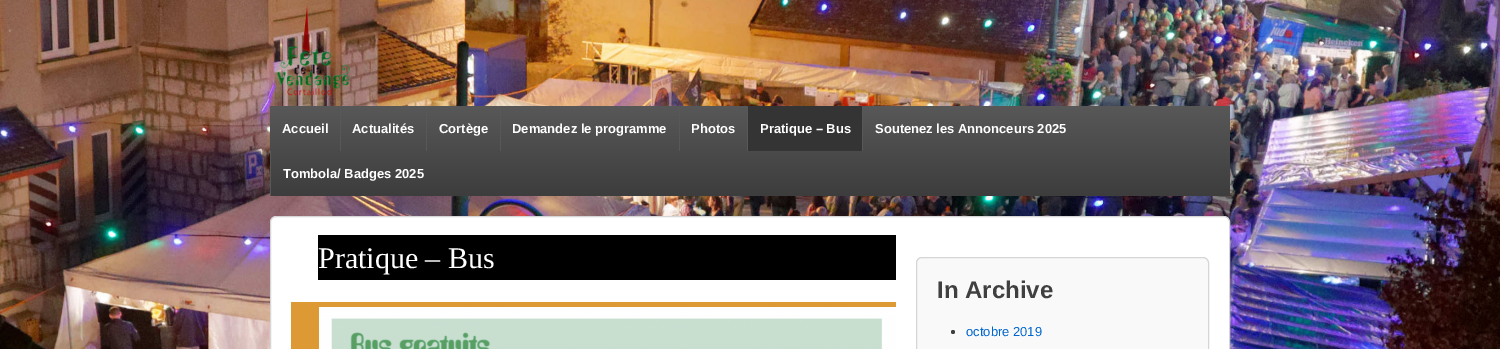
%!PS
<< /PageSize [1500 349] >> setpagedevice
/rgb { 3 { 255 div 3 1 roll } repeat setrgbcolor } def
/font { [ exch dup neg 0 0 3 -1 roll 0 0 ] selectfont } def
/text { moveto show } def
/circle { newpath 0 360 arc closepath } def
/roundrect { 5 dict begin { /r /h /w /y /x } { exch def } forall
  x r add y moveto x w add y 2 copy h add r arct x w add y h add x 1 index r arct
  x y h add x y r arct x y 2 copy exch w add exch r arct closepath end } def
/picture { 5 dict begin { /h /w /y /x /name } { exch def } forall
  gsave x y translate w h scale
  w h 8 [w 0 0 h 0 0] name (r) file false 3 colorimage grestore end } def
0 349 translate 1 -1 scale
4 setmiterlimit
255 255 255 rgb
0 0 1500 349 rectfill
(img_01.rgb) 0 0 1500 349 picture
(img_02.rgb) 276 5 74 91 picture
gsave 270 106 moveto 960 0 rlineto 0 90 rlineto -960 0 rlineto closepath clip newpath
<< /ShadingType 2 /ColorSpace /DeviceRGB /Coords [750 106 750 196] /Extend [true true] /Function << /FunctionType 2 /Domain [0 1] /C0 [0.345 0.345 0.345] /C1 [0.239 0.239 0.239] /N 1 >> >> shfill grestore
88 88 88 rgb
340 106 1 45 rectfill
426 106 1 45 rectfill
500 106 1 45 rectfill
679 106 1 45 rectfill
52 52 52 rgb
748 106 114 45 rectfill
88 88 88 rgb
747 106 1 45 rectfill
862 106 1 45 rectfill
270 151 1 45 rectfill
255 255 255 rgb
270.5 216.5 959 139 5.5 roundrect gsave fill grestore
214 214 214 rgb
stroke
0 0 0 rgb
318 235 578 45 rectfill
221 153 51 rgb
291 302 605 47 rectfill
(img_03.rgb) 319 307 577 42 picture
249 249 249 rgb
916.5 257.5 292 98 5.5 roundrect gsave fill grestore
214 214 214 rgb
stroke
64 64 64 rgb
953 332 2 circle fill
/Arimo-Bold 13 font
255 255 255 rgb
(Accueil) 282 133 text
(Actualités) 352 133 text
(Cortège) 439 133 text
(Demandez le programme) 512 133 text
(Photos) 691 133 text
(Pratique – Bus) 760 133 text
(Soutenez les Annonceurs 2025) 875 133 text
(Tombola/ Badges 2025) 283 178 text
/LiberationSerif-Regular 30 font
(Pratique – Bus) 318 268 text
/Arimo-Bold 24 font
64 64 64 rgb
(In Archive) 937 298 text
/Arimo-Regular 13 font
0 102 204 rgb
(octobre 2019) 966 336 text
showpage
